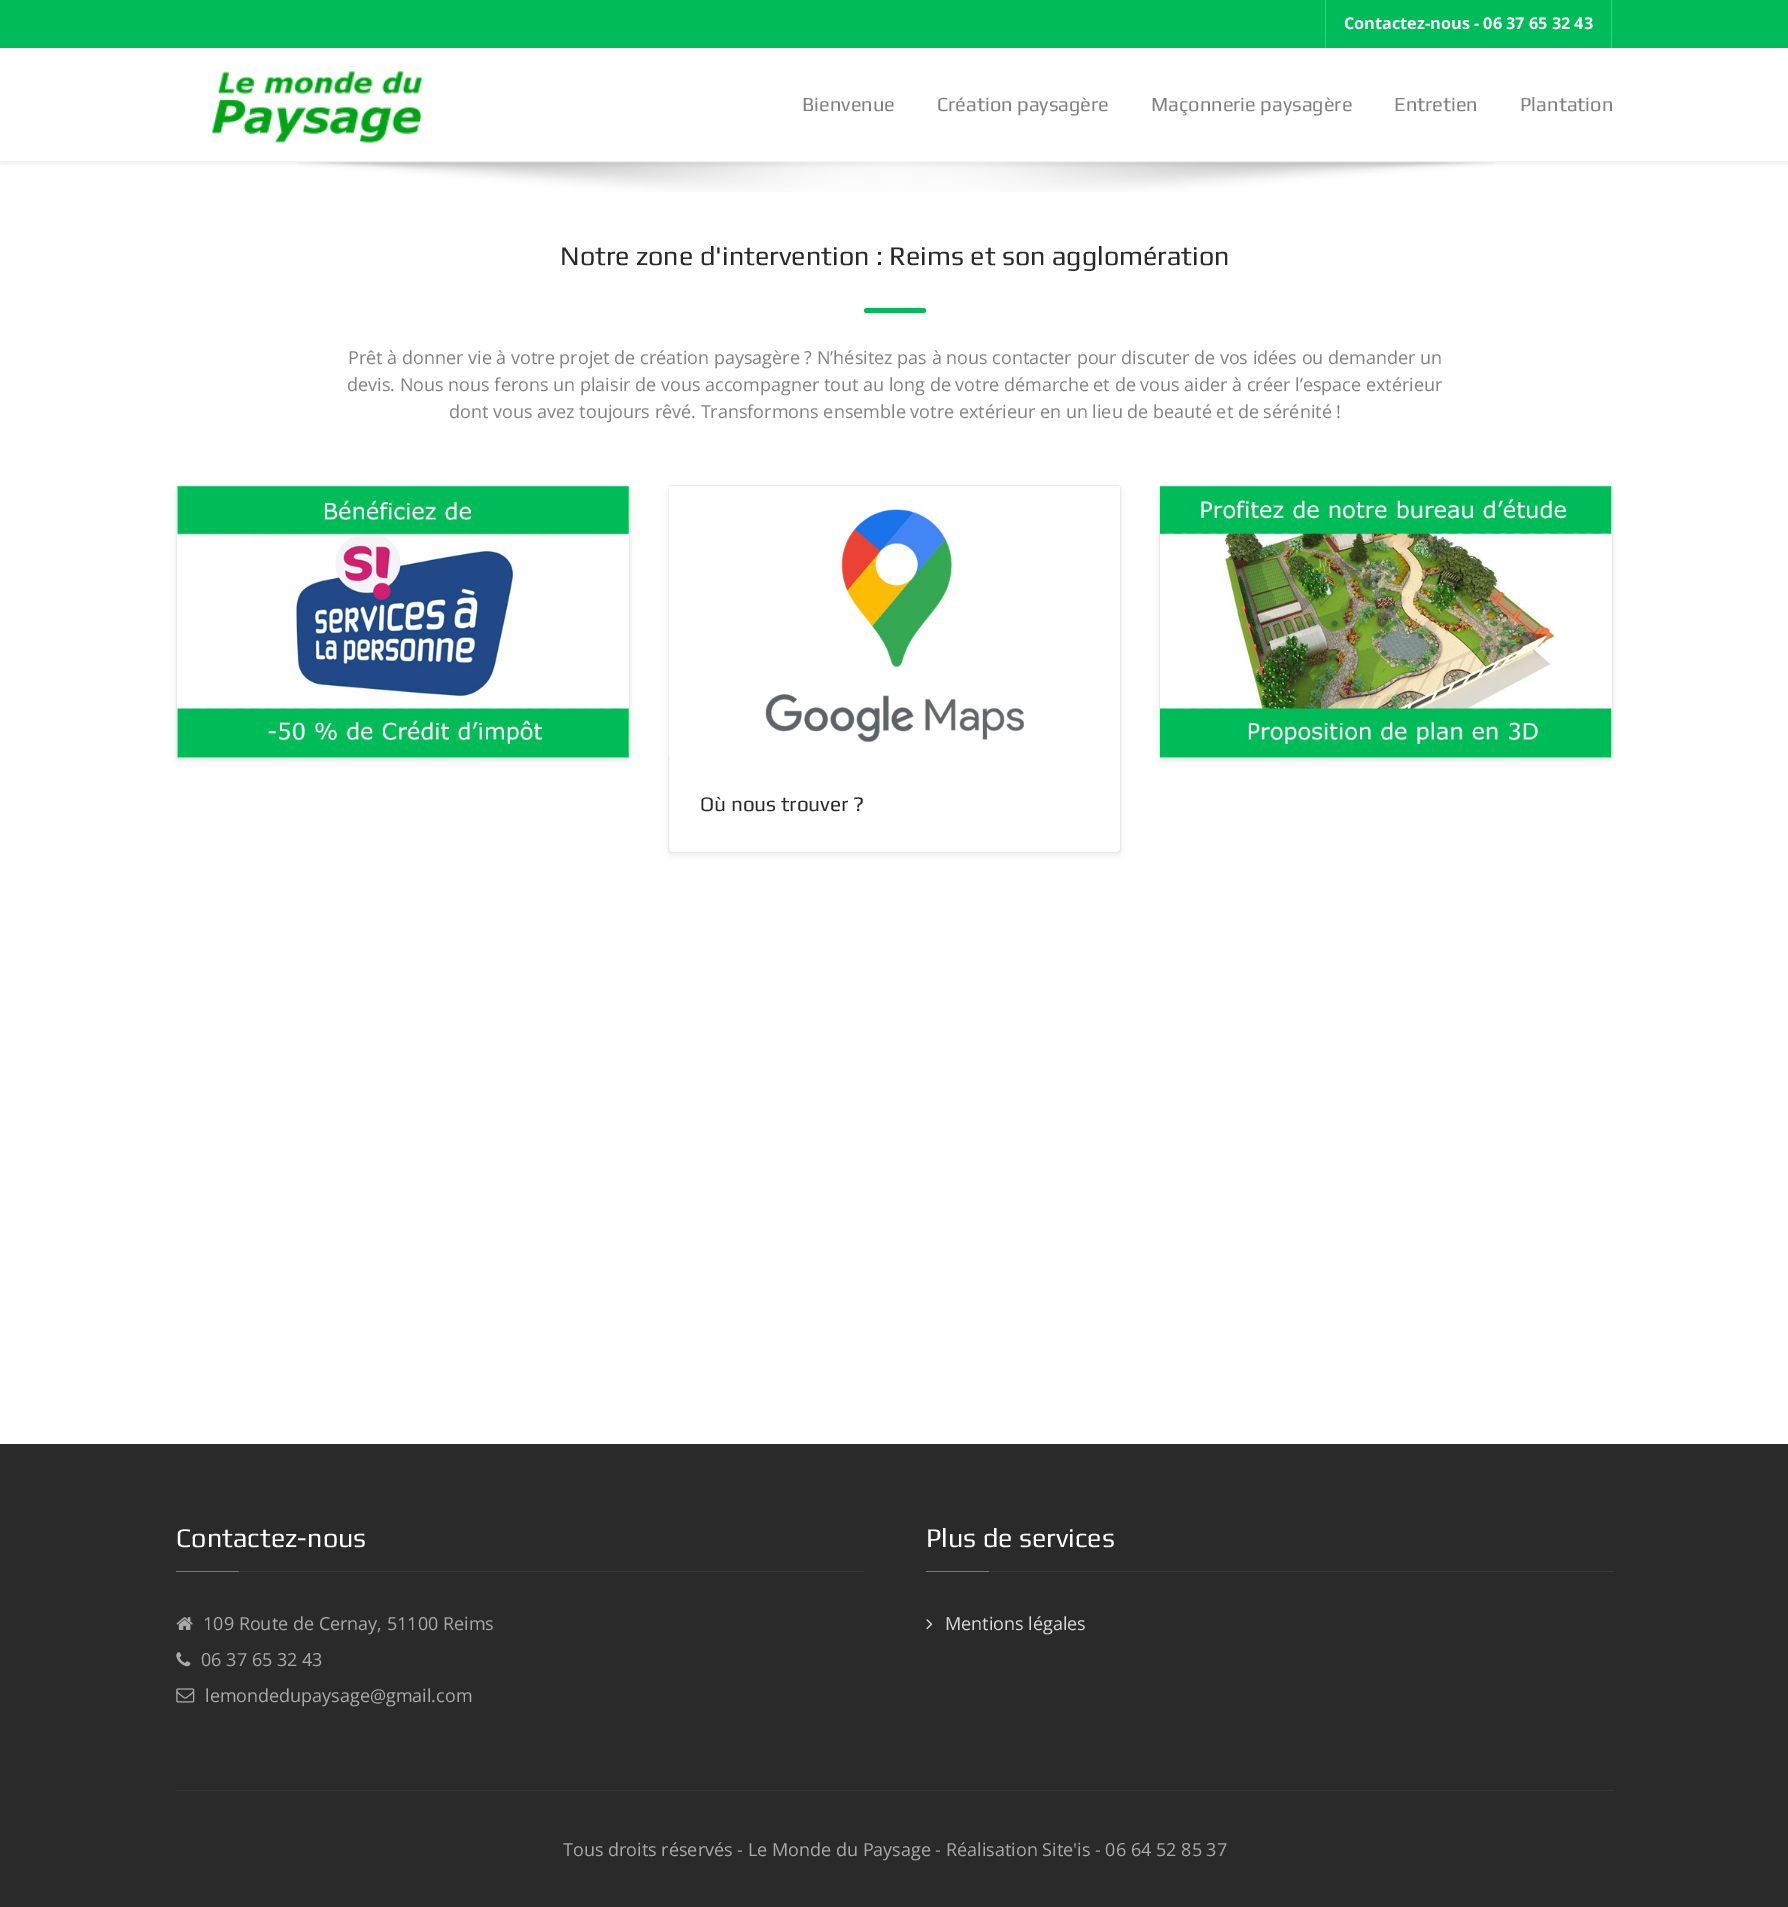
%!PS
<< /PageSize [1788 1907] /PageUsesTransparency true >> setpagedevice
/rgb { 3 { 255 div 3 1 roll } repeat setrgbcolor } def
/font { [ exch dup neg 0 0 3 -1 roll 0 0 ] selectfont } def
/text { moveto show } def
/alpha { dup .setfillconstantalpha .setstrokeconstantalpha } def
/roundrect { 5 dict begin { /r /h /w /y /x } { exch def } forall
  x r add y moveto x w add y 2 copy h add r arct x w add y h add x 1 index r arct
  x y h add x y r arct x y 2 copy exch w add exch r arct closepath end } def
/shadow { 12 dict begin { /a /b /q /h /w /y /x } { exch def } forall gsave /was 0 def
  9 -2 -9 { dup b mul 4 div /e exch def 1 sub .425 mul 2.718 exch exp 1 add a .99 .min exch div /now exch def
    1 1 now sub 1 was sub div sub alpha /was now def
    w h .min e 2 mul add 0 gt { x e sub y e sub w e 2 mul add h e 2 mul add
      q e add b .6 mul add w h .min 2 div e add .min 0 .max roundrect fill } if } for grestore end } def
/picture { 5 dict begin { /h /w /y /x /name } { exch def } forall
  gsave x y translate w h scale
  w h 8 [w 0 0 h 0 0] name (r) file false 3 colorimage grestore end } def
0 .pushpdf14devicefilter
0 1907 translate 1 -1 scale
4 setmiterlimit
255 255 255 rgb
0 0 1788 1907 rectfill
0 188 88 rgb
0 0 1788 48 rectfill
0 239 112 rgb
1611 0 1 48 rectfill
1325 0 1 48 rectfill
gsave
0 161 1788 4 rectclip
0 0 0 rgb
0 51 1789 114 0 2 0.05 shadow
grestore
(img_01.rgb) 211 71 212 72 picture
(img_02.rgb) 297 161 1198 31 picture
0 188 88 rgb
864 308 62 5 2.5 roundrect fill
0 0 0 rgb
176 488 454 273 4 3 0.07 shadow
233 233 233 rgb
176.5 485.5 453 273 3.5 roundrect stroke
(img_03.rgb) 177 486 452 272 picture
0 0 0 rgb
1159 488 454 273 4 3 0.07 shadow
233 233 233 rgb
1159.5 485.5 453 273 3.5 roundrect stroke
(img_04.rgb) 1160 486 452 272 picture
gsave
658 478 moveto 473 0 rlineto 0 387 rlineto -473 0 rlineto closepath 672 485 moveto 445 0 rlineto 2 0 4 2 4 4 rcurveto 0 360 rlineto 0 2 -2 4 -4 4 rcurveto -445 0 rlineto -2 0 -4 -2 -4 -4 rcurveto 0 -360 rlineto 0 -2 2 -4 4 -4 rcurveto closepath eoclip newpath
0 0 0 rgb
668 488 453 367 4 3 0.07 shadow
grestore
668.5 485.5 452 367 3.5 roundrect stroke
(img_05.rgb) 668 486 452 271 picture
42 42 42 rgb
0 1444 1788 463 rectfill
55 55 55 rgb
239 1571 625 1 rectfill
0 188 88 rgb
176 1571 63 1 rectfill
(img_06.rgb) 176 1617 17 13 picture
(img_07.rgb) 176 1652 15 15 picture
(img_08.rgb) 176 1688 19 15 picture
55 55 55 rgb
989 1571 625 1 rectfill
0 188 88 rgb
926 1571 63 1 rectfill
(img_09.rgb) 926 1619 7 11 picture
55 55 55 rgb
176 1790 1438 1 rectfill
/OpenSans-Bold 16.25 font
255 255 255 rgb
(Contactez-nous - 06 37 65 32 43) 1344 29 text
/Play-Regular 20 font
129 129 129 rgb
(Bienvenue) 802 111 text
(Création paysagère) 937 111 text
(Maçonnerie paysagère) 1151 111 text
(Entretien) 1394 111 text
(Plantation) 1520 111 text
/Play-Regular 27 font
42 42 42 rgb
(Notre zone d'intervention : Reims et son agglomération) 560 265 text
/OpenSans-Regular 18 font
129 129 129 rgb
(Prêt à donner vie à votre projet de création paysagère ? N’hésitez pas à nous contacter pour discuter de vos idées ou demander un) 348 364 text
(devis. Nous nous ferons un plaisir de vous accompagner tout au long de votre démarche et de vous aider à créer l’espace extérieur) 347 391 text
(dont vous avez toujours rêvé. Transformons ensemble votre extérieur en un lieu de beauté et de sérénité !) 449 418 text
/Play-Regular 20.75 font
42 42 42 rgb
(Où nous trouver ?) 700 811 text
/Play-Regular 27 font
255 255 255 rgb
(Contactez-nous) 176 1547 text
/OpenSans-Regular 18 font
170 170 170 rgb
(109 Route de Cernay, 51100 Reims) 203 1630 text
(06 37 65 32 43) 201 1666 text
(lemondedupaysage@gmail.com) 205 1702 text
/Play-Regular 27 font
255 255 255 rgb
(Plus de services) 926 1547 text
/OpenSans-Regular 18 font
221 221 221 rgb
(Mentions légales) 945 1630 text
170 170 170 rgb
(Tous droits réservés - Le Monde du Paysage - Réalisation Site'is - 06 64 52 85 37) 563 1856 text
.poppdf14devicefilter showpage
